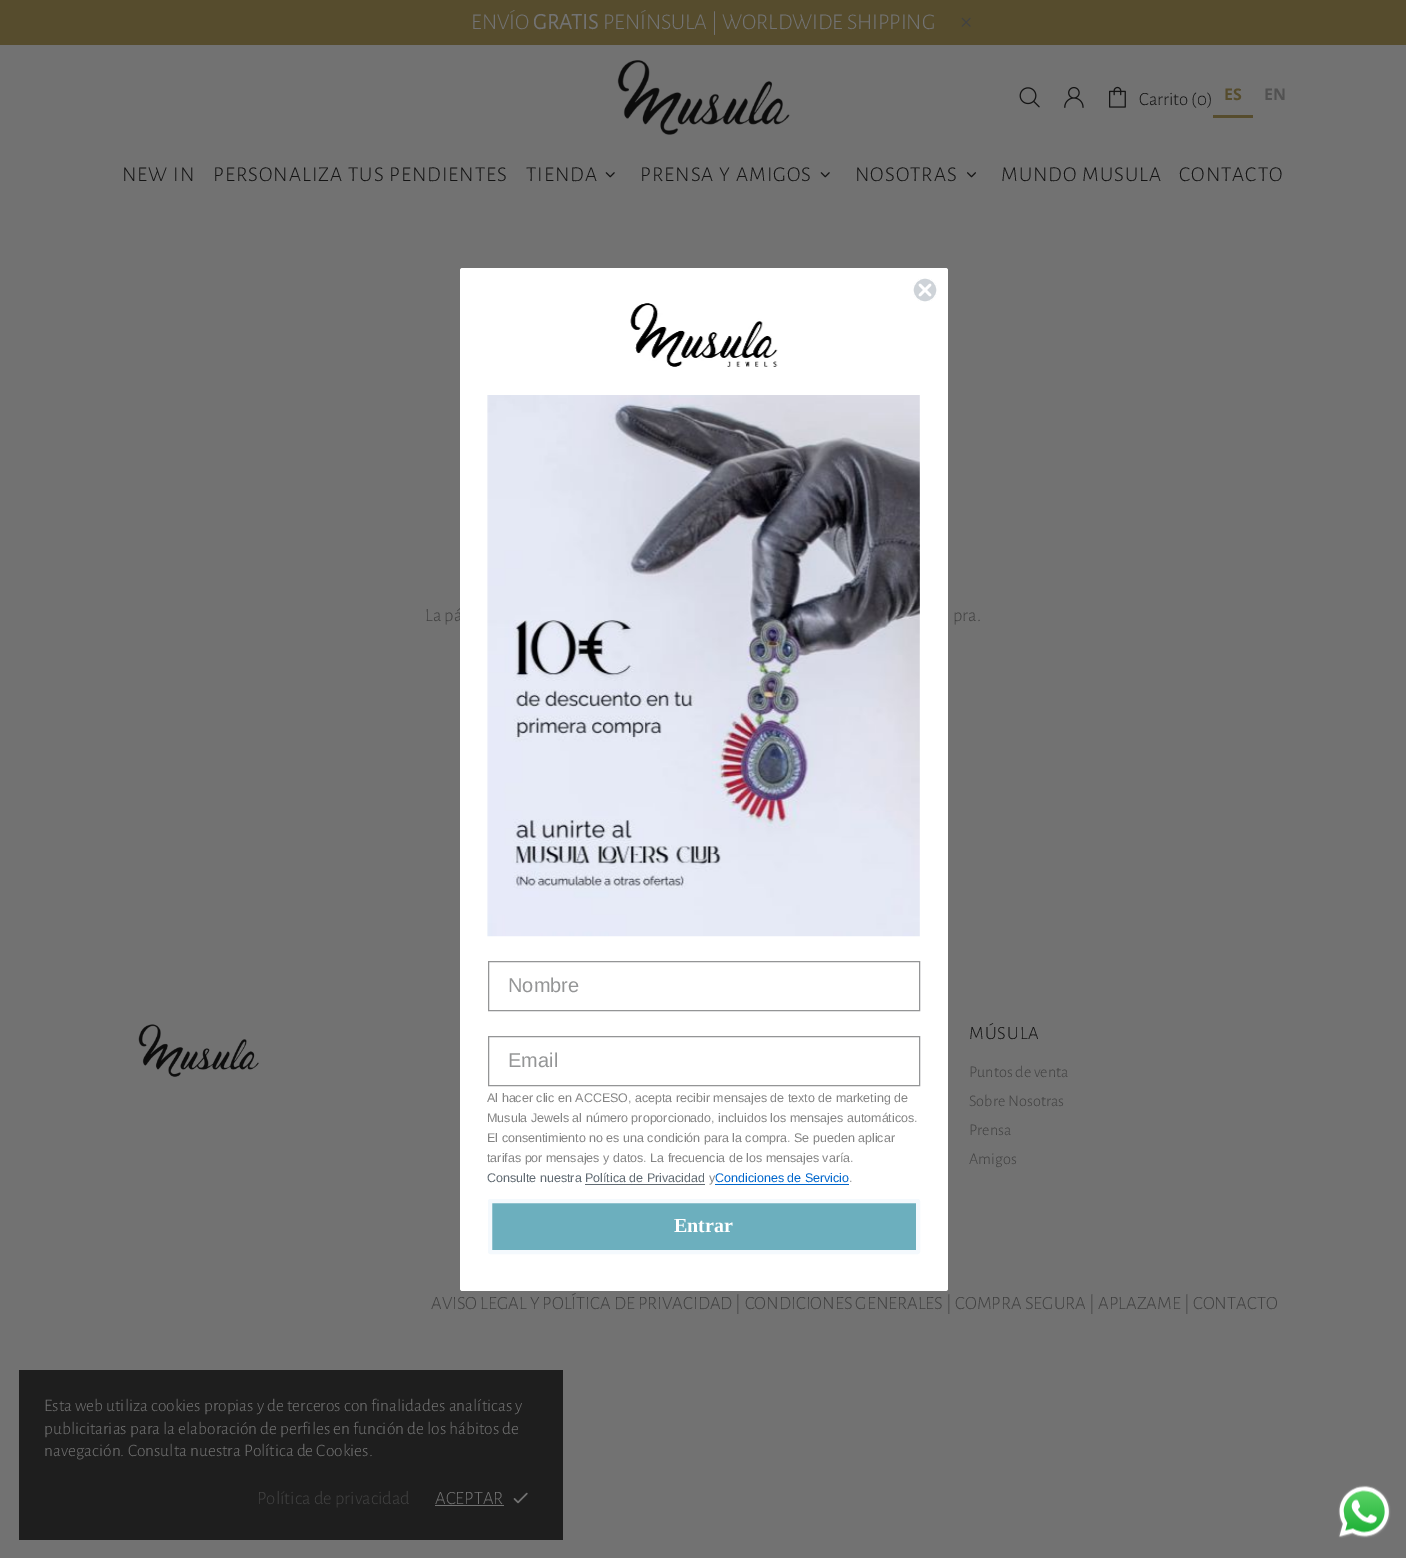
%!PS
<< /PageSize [1406 1558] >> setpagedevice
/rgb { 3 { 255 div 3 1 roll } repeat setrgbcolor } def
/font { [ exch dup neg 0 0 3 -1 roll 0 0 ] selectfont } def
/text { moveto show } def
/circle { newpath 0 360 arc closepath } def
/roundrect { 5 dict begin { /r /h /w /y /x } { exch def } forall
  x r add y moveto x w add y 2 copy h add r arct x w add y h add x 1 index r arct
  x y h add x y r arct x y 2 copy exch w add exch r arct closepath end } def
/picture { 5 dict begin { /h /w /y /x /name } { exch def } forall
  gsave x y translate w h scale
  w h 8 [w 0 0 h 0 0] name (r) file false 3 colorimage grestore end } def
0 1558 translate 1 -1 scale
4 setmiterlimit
114 114 114 rgb
0 0 1406 1558 rectfill
86 76 45 rgb
0 0 1406 45 rectfill
(img_01.rgb) 961 17 10 10 picture
(img_02.rgb) 617 60 173 75 picture
(img_03.rgb) 1019 87 21 21 picture
(img_04.rgb) 1064 86 20 22 picture
(img_05.rgb) 1109 86 17 22 picture
1213 115 40 3 rectfill
(img_06.rgb) 605 172 10 6 picture
(img_06.rgb) 820 172 10 6 picture
(img_07.rgb) 967 172 9 6 picture
(img_10.rgb) 138 1024 121 53 picture
30 30 30 rgb
19 1370 544 170 rectfill
114 114 114 rgb
435 1505 69 1 rectfill
(img_11.rgb) 513 1492 15 12 picture
(img_12.rgb) 1338 1485 53 53 picture
/AlegreyaSans-Light 22.5 font
(ENVÍO) 471 29 text
/AlegreyaSans-Bold 22.5 font
(GRATIS) 533 29 text
/AlegreyaSans-Light 22.5 font
(PENÍNSULA | WORLDWIDE SHIPPING) 603 29 text
/AlegreyaSans-Light 18.75 font
20 20 20 rgb
(Carrito \(0\)) 1139 105 text
/NotoSans-Bold 16 font
86 76 45 rgb
(ES) 1224 100 text
81 81 81 rgb
(EN) 1264 100 text
/AlegreyaSans-Light 21.25 font
20 20 20 rgb
122 181 moveto 1.05 0 (NEW IN) ashow
213 181 moveto 1.05 0 (PERSONALIZA TUS PENDIENTES) ashow
526 181 moveto 1.05 0 (TIENDA) ashow
640 181 moveto 1.05 0 (PRENSA Y AMIGOS) ashow
855 181 moveto 1.05 0 (NOSOTRAS) ashow
1001 181 moveto 1.05 0 (MUNDO MUSULA) ashow
1179 181 moveto 1.05 0 (CONTACTO) ashow
/AlegreyaSans-Light 18.75 font
65 65 65 rgb
(La pá) 425 621 text
(pra.) 953 621 text
255 255 255 rgb
460 268 488 1023 2.5 roundrect fill
206 211 216 rgb
925 290 12 circle fill
gsave
913 278 25 25 rectclip
255 255 255 rgb
1.2 setlinewidth
925 290 12 circle stroke
grestore
255 255 255 rgb
2.5 setlinewidth
1 setlinecap
1 setlinejoin
920 285 moveto 10 10 rlineto 920 295 moveto 10 -10 rlineto closepath stroke
(img_08.rgb) 630 303 148 64 picture
(img_09.rgb) 487 395 433 542 picture
148 149 150 rgb
1 setlinewidth
0 setlinecap
0 setlinejoin
488.5 961.5 431 49 rectstroke
/LiberationSans-Regular 20 font
(Nombre) 508 992 text
488.5 1036.5 431 49 rectstroke
(Email) 508 1067 text
/LiberationSans-Regular 12.5 font
133 133 133 rgb
(Al hacer clic en ACCESO, acepta recibir mensajes de texto de marketing de) 487 1102 text
(Musula Jewels al número proporcionado, incluidos los mensajes automáticos.) 487 1122 text
(El consentimiento no es una condición para la compra. Se pueden aplicar) 487 1142 text
(tarifas por mensajes y datos. La frecuencia de los mensajes varía.) 487 1162 text
96 106 114 rgb
(Consulte nuestra Política de Privacidad) 487 1182 text
133 133 133 rgb
(y) 709 1182 text
0 102 204 rgb
(Condiciones de Servicio) 715 1182 text
715 1184 134 1 rectfill
133 133 133 rgb
(.) 849 1182 text
96 106 114 rgb
585 1184 120 1 rectfill
108 175 190 rgb
490 1201 428 51 0.5 roundrect gsave fill grestore
244 249 253 rgb
4 setlinewidth
stroke
/LiberationSerif-Bold 20 font
255 255 255 rgb
(Entrar) 674 1232 text
/AlegreyaSans-Light 18.75 font
20 20 20 rgb
969 1039 moveto 1 0 (MÚSULA) ashow
/AlegreyaSans-Light 16.25 font
65 65 65 rgb
(Puntos de venta) 969 1077 text
(Sobre Nosotras) 969 1106 text
(Prensa) 969 1135 text
(Amigos) 969 1164 text
/AlegreyaSans-Light 18.75 font
(AVISO LEGAL Y POLÍTICA DE PRIVACIDAD | CONDICIONES GENERALES | COMPRA SEGURA | APLAZAME | CONTACTO) 431 1309 text
/AlegreyaSans-Light 17.5 font
114 114 114 rgb
(Esta web utiliza cookies propias y de terceros con finalidades analíticas y) 44 1411 text
(publicitarias para la elaboración de perfiles en función de los hábitos de) 44 1434 text
(navegación. Consulta nuestra Política de Cookies.) 44 1456 text
/AlegreyaSans-Light 18.75 font
65 65 65 rgb
(Política de privacidad) 257 1504 text
114 114 114 rgb
(ACEPTAR) 435 1504 text
showpage
